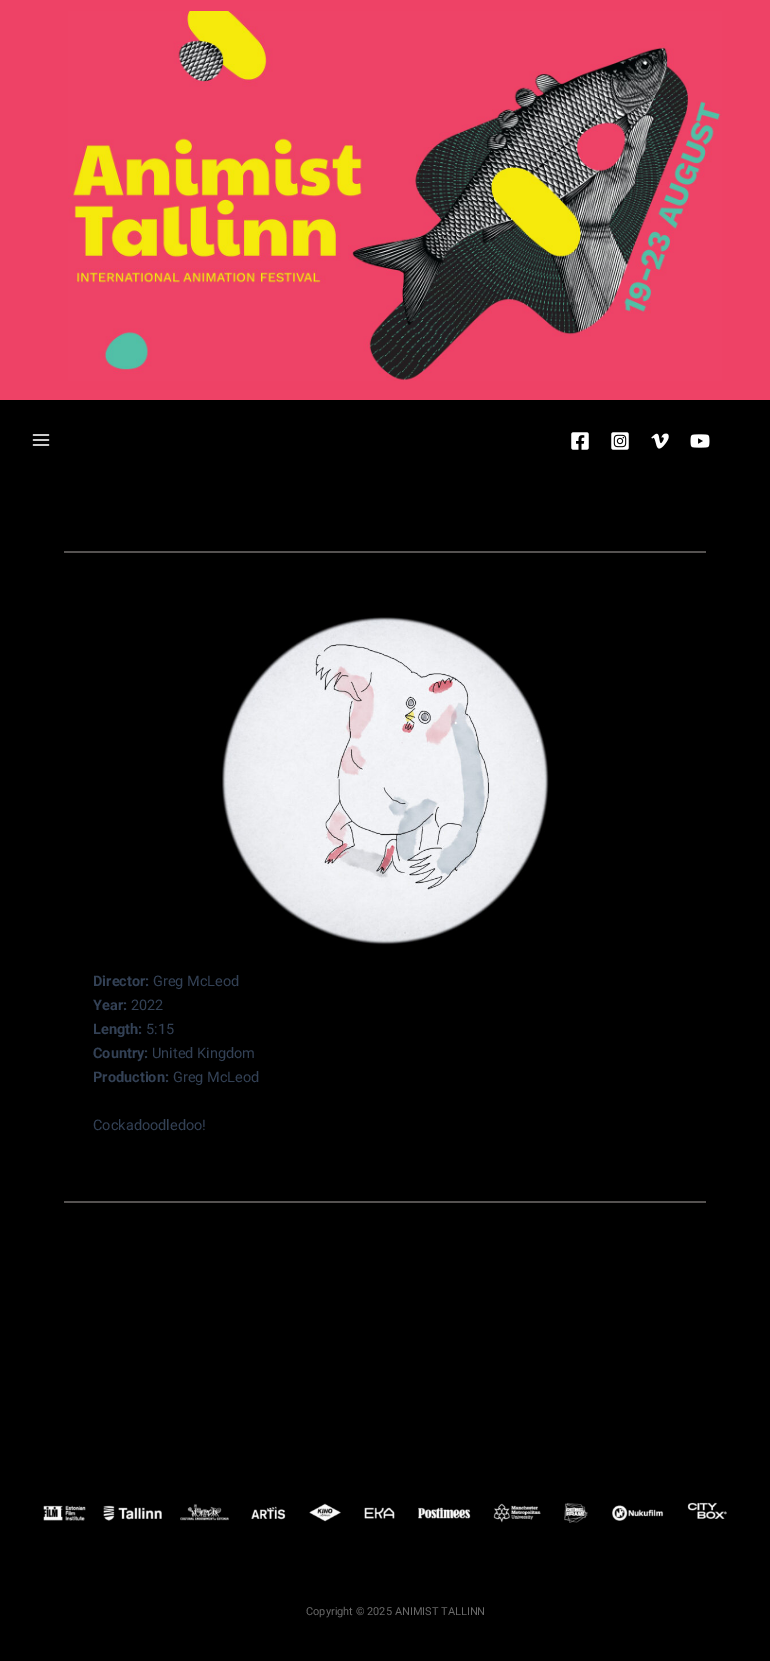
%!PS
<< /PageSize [770 1661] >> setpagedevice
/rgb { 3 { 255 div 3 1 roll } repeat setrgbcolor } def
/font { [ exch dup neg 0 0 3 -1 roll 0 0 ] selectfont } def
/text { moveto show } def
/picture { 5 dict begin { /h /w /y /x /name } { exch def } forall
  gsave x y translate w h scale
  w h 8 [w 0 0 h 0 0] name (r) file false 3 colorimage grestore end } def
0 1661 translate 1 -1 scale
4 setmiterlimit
0 0 0 rgb
0 0 770 1661 rectfill
238 66 102 rgb
0 0 770 400 rectfill
(img_01.rgb) 68 11 654 370 picture
(img_02.rgb) 32 434 18 12 picture
(img_03.rgb) 571 432 18 18 picture
(img_04.rgb) 611 432 18 18 picture
(img_05.rgb) 651 433 18 16 picture
(img_06.rgb) 690 434 20 14 picture
85 82 81 rgb
64 551 642 2 rectfill
(img_07.rgb) 222 617 327 328 picture
64 1201 642 2 rectfill
(img_08.rgb) 43 1502 684 21 picture
/Roboto-Bold 14.5 font
51 65 85 rgb
(Director:) 93 986 text
/Roboto-Regular 14.5 font
(Greg McLeod) 153 986 text
/Roboto-Bold 14.5 font
(Year:) 93 1010 text
/Roboto-Regular 14.5 font
(2022) 131 1010 text
/Roboto-Bold 14.5 font
(Length:) 93 1034 text
/Roboto-Regular 14.5 font
(5:15) 146 1034 text
/Roboto-Bold 14.5 font
(Country:) 93 1058 text
/Roboto-Regular 14.5 font
(United Kingdom) 152 1058 text
/Roboto-Bold 14.5 font
(Production:) 93 1082 text
/Roboto-Regular 14.5 font
(Greg McLeod) 173 1082 text
(Cockadoodledoo!) 93 1130 text
/Roboto-Regular 11 font
106 106 106 rgb
(Copyright © 2025 ANIMIST TALLINN) 306 1615 text
showpage
